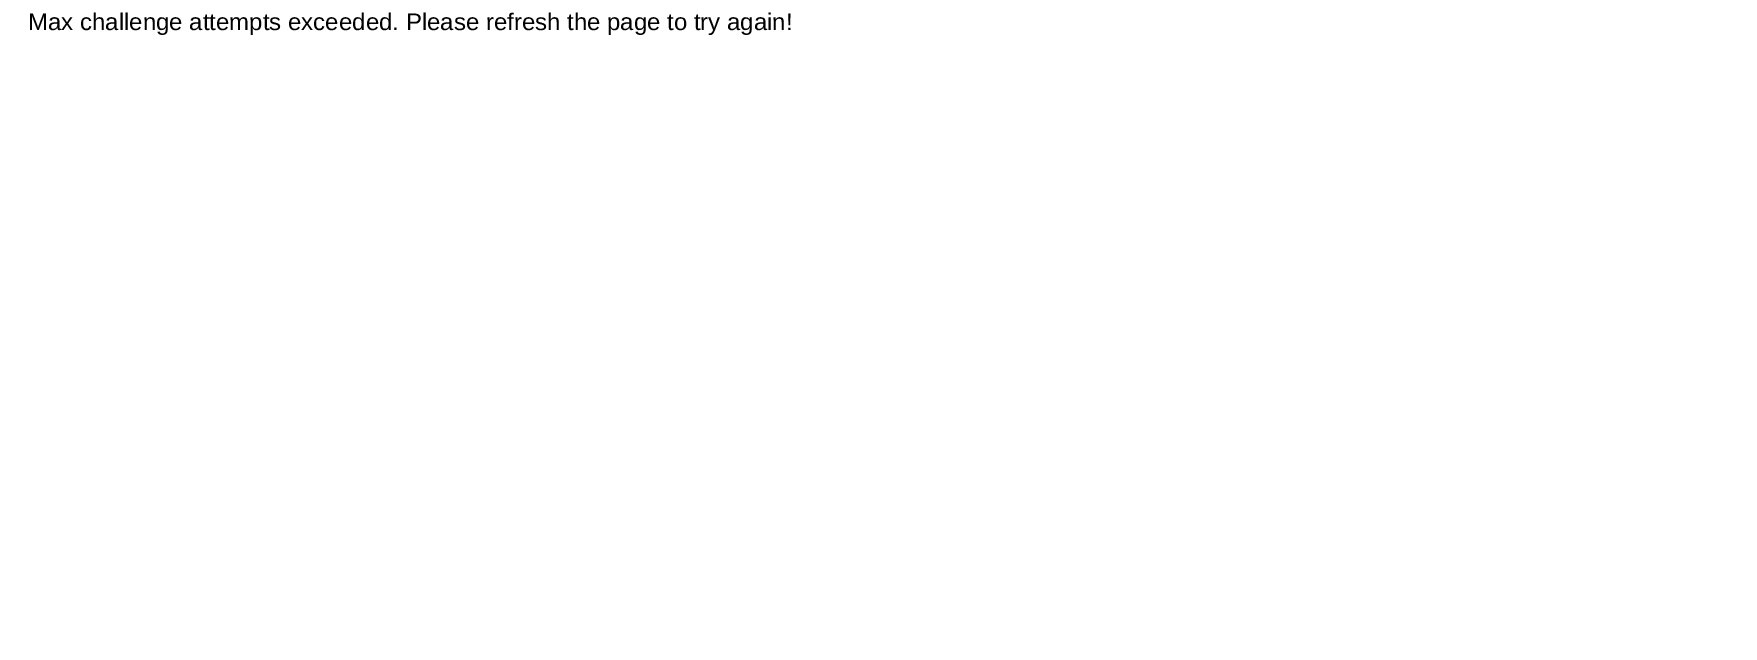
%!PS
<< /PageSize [1757 660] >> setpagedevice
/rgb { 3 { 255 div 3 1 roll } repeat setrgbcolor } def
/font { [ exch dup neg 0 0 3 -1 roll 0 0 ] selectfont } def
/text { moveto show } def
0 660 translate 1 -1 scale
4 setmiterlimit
255 255 255 rgb
0 0 1757 660 rectfill
/LiberationSans-Regular 24 font
0 0 0 rgb
(Max challenge attempts exceeded. Please refresh the page to try again!) 28 30 text
showpage
